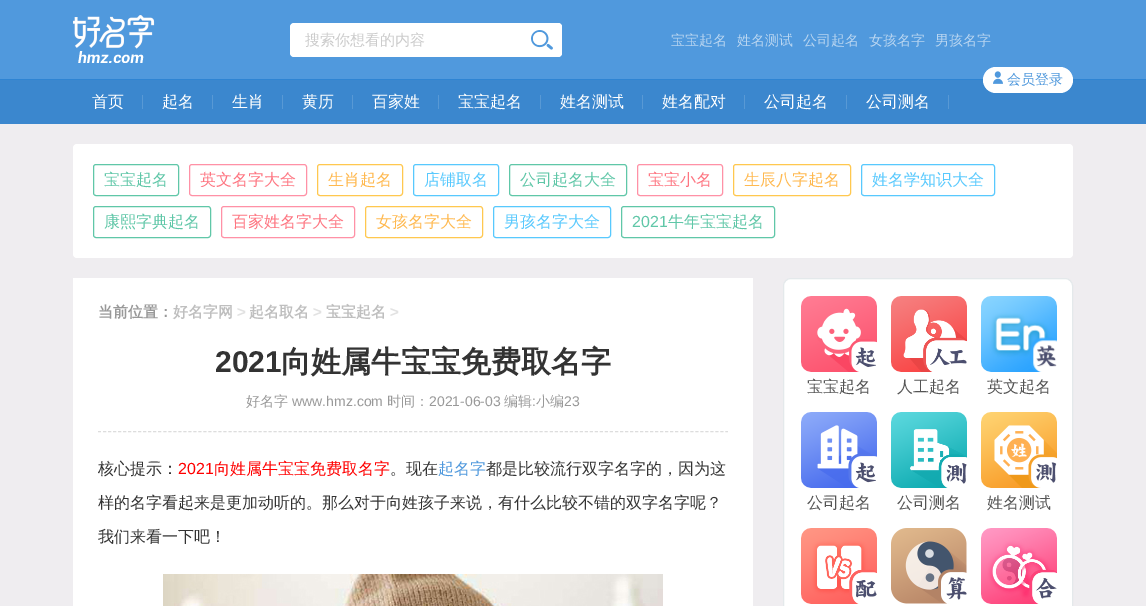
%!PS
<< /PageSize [1146 606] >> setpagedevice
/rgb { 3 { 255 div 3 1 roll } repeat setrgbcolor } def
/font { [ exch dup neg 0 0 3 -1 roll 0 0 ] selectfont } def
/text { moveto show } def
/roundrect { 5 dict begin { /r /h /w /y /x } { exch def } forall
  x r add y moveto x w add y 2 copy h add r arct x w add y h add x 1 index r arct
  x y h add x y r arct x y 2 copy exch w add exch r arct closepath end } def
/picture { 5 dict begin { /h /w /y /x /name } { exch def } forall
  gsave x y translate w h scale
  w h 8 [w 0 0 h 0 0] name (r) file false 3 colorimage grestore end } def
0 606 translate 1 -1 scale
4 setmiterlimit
239 237 240 rgb
0 0 1146 606 rectfill
80 153 221 rgb
0 0 1146 79 rectfill
(img_01.rgb) 73 15 82 48 picture
255 255 255 rgb
290 23 272 34 4 roundrect fill
522 23 moveto 36 0 rlineto 2 0 4 2 4 4 rcurveto 0 26 rlineto 0 2 -2 4 -4 4 rcurveto -36 0 rlineto closepath fill
(img_02.rgb) 531 30 22 20 picture
59 135 206 rgb
0 80 1146 44 rectfill
46 132 211 rgb
0 79 1146 1 rectfill
255 255 255 rgb
983 67 90 26 13 roundrect fill
(img_03.rgb) 993 71 10 13 picture
88 153 213 rgb
142 95 1 14 rectfill
212 95 1 14 rectfill
282 95 1 14 rectfill
352 95 1 14 rectfill
438 95 1 14 rectfill
540 95 1 14 rectfill
642 95 1 14 rectfill
744 95 1 14 rectfill
846 95 1 14 rectfill
948 95 1 14 rectfill
255 255 255 rgb
73 144 1000 114 4 roundrect fill
96 199 168 rgb
93.5 164.5 85 31 2.5 roundrect stroke
255 145 166 rgb
189.5 164.5 117 31 2.5 roundrect stroke
255 200 79 rgb
317.5 164.5 85 31 2.5 roundrect stroke
88 201 254 rgb
413.5 164.5 85 31 2.5 roundrect stroke
96 199 168 rgb
509.5 164.5 117 31 2.5 roundrect stroke
255 145 166 rgb
637.5 164.5 85 31 2.5 roundrect stroke
255 200 79 rgb
733.5 164.5 117 31 2.5 roundrect stroke
88 201 254 rgb
861.5 164.5 133 31 2.5 roundrect stroke
96 199 168 rgb
93.5 206.5 117 31 2.5 roundrect stroke
255 145 166 rgb
221.5 206.5 133 31 2.5 roundrect stroke
255 200 79 rgb
365.5 206.5 117 31 2.5 roundrect stroke
88 201 254 rgb
493.5 206.5 117 31 2.5 roundrect stroke
96 199 168 rgb
621.5 206.5 153 31 2.5 roundrect stroke
255 255 255 rgb
73 278 680 328 rectfill
221 221 221 rgb
[3 2.02] 0 setdash
98 431.5 moveto 630 0 rlineto stroke
(img_04.rgb) 163 574 500 32 picture
255 255 255 rgb
783.5 278.5 289 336 7.5 roundrect gsave fill grestore
228 233 235 rgb
[] 0 setdash
stroke
(img_05.rgb) 801 296 76 76 picture
(img_06.rgb) 891 296 76 76 picture
(img_07.rgb) 981 296 76 76 picture
(img_08.rgb) 801 412 76 76 picture
(img_09.rgb) 891 412 76 76 picture
(img_10.rgb) 981 412 76 76 picture
(img_11.rgb) 801 528 76 76 picture
(img_12.rgb) 891 528 76 76 picture
(img_13.rgb) 981 528 76 76 picture
/WenQuanYiZenHei-Medium 15 font
204 204 204 rgb
(搜索你想看的内容) 305 45 text
/WenQuanYiZenHei-Medium 14 font
185 214 241 rgb
(宝宝起名) 671 45 text
(姓名测试) 737 45 text
(公司起名) 803 45 text
(女孩名字) 869 45 text
(男孩名字) 935 45 text
80 153 221 rgb
(会员登录) 1007 84 text
/WenQuanYiZenHei-Medium 16 font
255 255 255 rgb
(首页) 92 107 text
(起名) 162 107 text
(生肖) 232 107 text
(黄历) 302 107 text
(百家姓) 372 107 text
(宝宝起名) 458 107 text
(姓名测试) 560 107 text
(姓名配对) 662 107 text
(公司起名) 764 107 text
(公司测名) 866 107 text
96 199 168 rgb
(宝宝起名) 104 185 text
254 117 129 rgb
(英文名字大全) 200 185 text
255 185 79 rgb
(生肖起名) 328 185 text
88 201 254 rgb
(店铺取名) 424 185 text
96 199 168 rgb
(公司起名大全) 520 185 text
254 117 129 rgb
(宝宝小名) 648 185 text
255 185 79 rgb
(生辰八字起名) 744 185 text
88 201 254 rgb
(姓名学知识大全) 872 185 text
96 199 168 rgb
(康熙字典起名) 104 227 text
254 117 129 rgb
(百家姓名字大全) 232 227 text
255 185 79 rgb
(女孩名字大全) 376 227 text
88 201 254 rgb
(男孩名字大全) 504 227 text
/LiberationSans-Regular 16 font
96 199 168 rgb
(2021) 632 227 text
/WenQuanYiZenHei-Medium 16 font
(牛年宝宝起名) 668 227 text
/WenQuanYiZenHei-Bold 15 font
153 153 153 rgb
(当前位置：) 98 317 text
191 191 191 rgb
(好名字网) 173 317 text
/LiberationSans-Bold 15 font
226 226 226 rgb
(>) 237 317 text
/WenQuanYiZenHei-Bold 15 font
191 191 191 rgb
(起名取名) 249 317 text
/LiberationSans-Bold 15 font
226 226 226 rgb
(>) 313 317 text
/WenQuanYiZenHei-Bold 15 font
191 191 191 rgb
(宝宝起名) 326 317 text
/LiberationSans-Bold 15 font
226 226 226 rgb
(>) 390 317 text
/LiberationSans-Bold 30 font
51 51 51 rgb
(2021) 215 372 text
/WenQuanYiZenHei-Bold 30 font
(向姓属牛宝宝免费取名字) 281 372 text
/WenQuanYiZenHei-Medium 14 font
153 153 153 rgb
(好名字) 246 406 text
/LiberationSans-Regular 14 font
(www.hmz.com) 292 406 text
/WenQuanYiZenHei-Medium 14 font
(时间：) 387 406 text
/LiberationSans-Regular 14 font
(2021-06-03) 429 406 text
/WenQuanYiZenHei-Medium 14 font
(编辑) 504 406 text
/LiberationSans-Regular 14 font
(:) 532 406 text
/WenQuanYiZenHei-Medium 14 font
(小编) 536 406 text
/LiberationSans-Regular 14 font
(23) 564 406 text
/WenQuanYiZenHei-Medium 16 font
51 51 51 rgb
(核心提示：) 98 474 text
/LiberationSans-Regular 16 font
255 0 0 rgb
(2021) 178 474 text
/WenQuanYiZenHei-Medium 16 font
(向姓属牛宝宝免费取名字) 214 474 text
51 51 51 rgb
(。现在) 390 474 text
80 153 221 rgb
(起名字) 438 474 text
51 51 51 rgb
(都是比较流行双字名字的，因为这) 486 474 text
(样的名字看起来是更加动听的。那么对于向姓孩子来说，有什么比较不错的双字名字呢？) 98 508 text
(我们来看一下吧！) 98 542 text
85 85 85 rgb
(宝宝起名) 807 392 text
(人工起名) 897 392 text
(英文起名) 987 392 text
(公司起名) 807 508 text
(公司测名) 897 508 text
(姓名测试) 987 508 text
showpage
